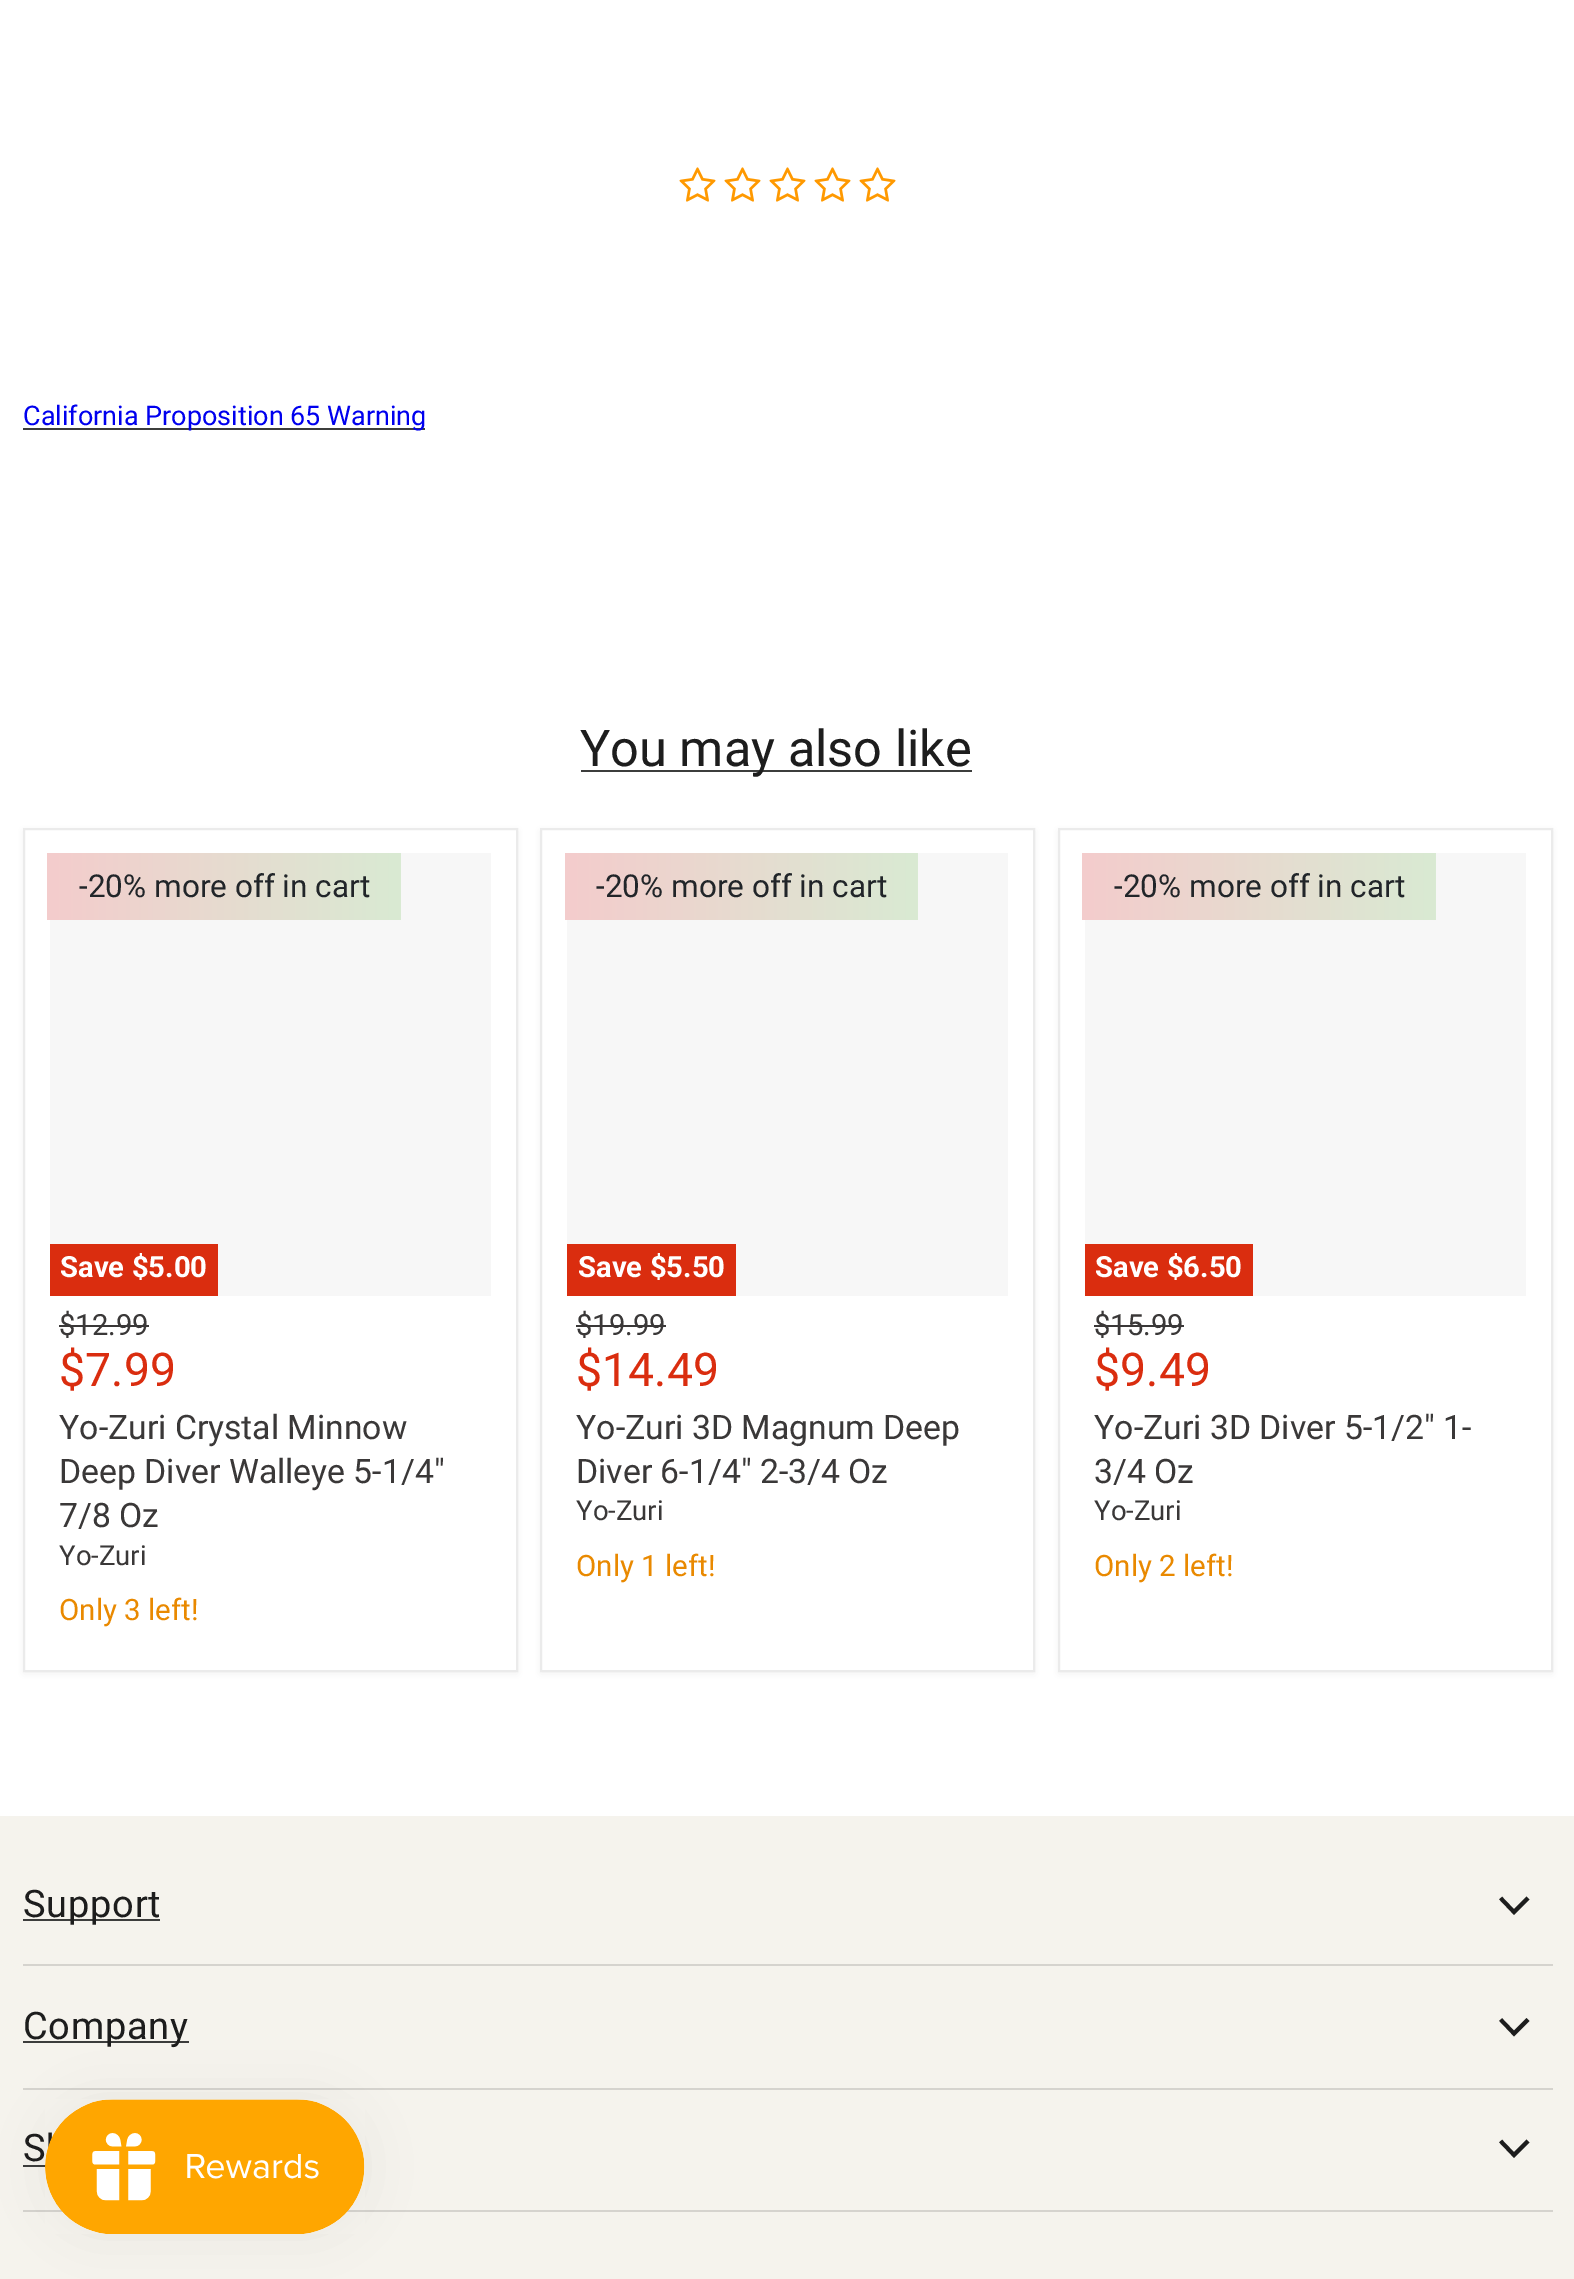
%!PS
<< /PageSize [1574 2279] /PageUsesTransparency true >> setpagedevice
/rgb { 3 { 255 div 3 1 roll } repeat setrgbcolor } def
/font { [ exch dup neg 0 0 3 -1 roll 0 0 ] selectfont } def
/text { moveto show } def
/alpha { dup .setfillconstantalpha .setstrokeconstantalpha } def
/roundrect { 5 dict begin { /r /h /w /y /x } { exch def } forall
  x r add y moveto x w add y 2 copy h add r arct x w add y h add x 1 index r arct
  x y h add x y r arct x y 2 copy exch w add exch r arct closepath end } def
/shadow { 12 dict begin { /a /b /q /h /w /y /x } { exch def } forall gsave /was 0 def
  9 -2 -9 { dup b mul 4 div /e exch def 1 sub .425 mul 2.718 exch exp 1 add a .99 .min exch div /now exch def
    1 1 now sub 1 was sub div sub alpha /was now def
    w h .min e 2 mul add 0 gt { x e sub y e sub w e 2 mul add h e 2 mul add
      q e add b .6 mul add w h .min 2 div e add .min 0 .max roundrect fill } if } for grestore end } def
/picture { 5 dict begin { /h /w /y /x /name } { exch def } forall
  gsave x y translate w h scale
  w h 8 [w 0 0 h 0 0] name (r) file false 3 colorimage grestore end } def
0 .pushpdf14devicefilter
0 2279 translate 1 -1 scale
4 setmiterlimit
255 255 255 rgb
0 0 1574 2279 rectfill
(img_01.rgb) 679 167 37 35 picture
(img_01.rgb) 724 167 37 35 picture
(img_01.rgb) 769 167 37 35 picture
(img_01.rgb) 814 167 37 35 picture
(img_01.rgb) 859 167 37 35 picture
60 61 60 rgb
23 428 402 2 rectfill
581 770 391 2 rectfill
128 128 128 rgb
23 830 495 844 0 4.5 0.11 shadow
255 255 255 rgb
24 829 moveto 493 0 rlineto 0 842 rlineto -493 0 rlineto closepath gsave fill grestore
235 235 235 rgb
2 setlinewidth
stroke
247 247 247 rgb
50 853 441 443 rectfill
gsave 47 853 moveto 354 0 rlineto 0 67 rlineto -354 0 rlineto closepath clip newpath
<< /ShadingType 2 /ColorSpace /DeviceRGB /Coords [47 887 401 887] /Extend [true true] /Function << /FunctionType 2 /Domain [0 1] /C0 [0.957 0.8 0.8] /C1 [0.851 0.918 0.827] /N 1 >> >> shfill grestore
218 45 15 rgb
50 1244 168 52 rectfill
58 56 56 rgb
59 1325 90 2 rectfill
128 128 128 rgb
540 830 495 844 0 4.5 0.11 shadow
255 255 255 rgb
541 829 moveto 493 0 rlineto 0 842 rlineto -493 0 rlineto closepath gsave fill grestore
235 235 235 rgb
stroke
247 247 247 rgb
567 853 441 443 rectfill
gsave 565 853 moveto 353 0 rlineto 0 67 rlineto -353 0 rlineto closepath clip newpath
<< /ShadingType 2 /ColorSpace /DeviceRGB /Coords [565 887 918 887] /Extend [true true] /Function << /FunctionType 2 /Domain [0 1] /C0 [0.957 0.8 0.8] /C1 [0.851 0.918 0.827] /N 1 >> >> shfill grestore
218 45 15 rgb
567 1244 169 52 rectfill
58 56 56 rgb
576 1325 90 2 rectfill
128 128 128 rgb
1058 830 495 844 0 4.5 0.11 shadow
255 255 255 rgb
1059 829 moveto 493 0 rlineto 0 842 rlineto -493 0 rlineto closepath gsave fill grestore
235 235 235 rgb
stroke
247 247 247 rgb
1085 853 441 443 rectfill
gsave 1082 853 moveto 354 0 rlineto 0 67 rlineto -354 0 rlineto closepath clip newpath
<< /ShadingType 2 /ColorSpace /DeviceRGB /Coords [1082 887 1436 887] /Extend [true true] /Function << /FunctionType 2 /Domain [0 1] /C0 [0.957 0.8 0.8] /C1 [0.851 0.918 0.827] /N 1 >> >> shfill grestore
218 45 15 rgb
1085 1244 168 52 rectfill
58 56 56 rgb
1094 1325 90 2 rectfill
245 243 237 rgb
0 1816 1574 463 rectfill
213 211 206 rgb
23 1964 1530 2 rectfill
60 61 60 rgb
23 1919 137 2 rectfill
29 29 29 rgb
3.9 setlinewidth
2 setlinecap
1514 1912 moveto 12.5 -12.5 rlineto 1514 1912 moveto -12 -12.5 rlineto stroke
213 211 206 rgb
23 2088 1530 2 rectfill
60 61 60 rgb
23 2041 166 2 rectfill
29 29 29 rgb
1514 2033.5 moveto 12.5 -12.5 rlineto 1514 2033.5 moveto -12 -12.5 rlineto stroke
213 211 206 rgb
23 2210 1530 2 rectfill
60 61 60 rgb
23 2165 23 2 rectfill
29 29 29 rgb
1514 2155 moveto 12.5 -12.5 rlineto 1514 2155 moveto -12 -12.5 rlineto stroke
0 0 0 rgb
45 2099 320 135 67.5 28 0.05 shadow
(img_02.rgb) 45 2099 320 135 picture
/Roboto-Regular 27 font
0 0 238 rgb
(California Proposition 65 Warning) 23 425 text
/Roboto-Regular 50.5 font
29 29 29 rgb
(You may also like) 580 766 text
/Roboto-Regular 31.5 font
33 37 41 rgb
(-20% more off in cart) 79 897 text
/Roboto-Bold 29.25 font
255 255 255 rgb
(Save $5.00) 60 1277 text
/Roboto-Regular 29.25 font
58 56 56 rgb
($12.99) 59 1335 text
/Roboto-Regular 46.5 font
218 45 15 rgb
($7.99) 59 1386 text
/Roboto-Regular 33.75 font
58 56 56 rgb
(Yo-Zuri Crystal Minnow) 59 1439 text
(Deep Diver Walleye 5-1/4") 59 1483 text
(7/8 Oz) 59 1527 text
/Roboto-Regular 27.5 font
(Yo-Zuri) 59 1565 text
/Roboto-Regular 29.5 font
233 137 0 rgb
(Only 3 left!) 59 1620 text
/Roboto-Regular 31.5 font
33 37 41 rgb
(-20% more off in cart) 596 897 text
/Roboto-Bold 29.25 font
255 255 255 rgb
(Save $5.50) 578 1277 text
/Roboto-Regular 29.25 font
58 56 56 rgb
($19.99) 576 1335 text
/Roboto-Regular 46.5 font
218 45 15 rgb
($14.49) 576 1386 text
/Roboto-Regular 33.75 font
58 56 56 rgb
(Yo-Zuri 3D Magnum Deep) 576 1439 text
(Diver 6-1/4" 2-3/4 Oz) 576 1483 text
/Roboto-Regular 27.5 font
(Yo-Zuri) 576 1520 text
/Roboto-Regular 29.5 font
233 137 0 rgb
(Only 1 left!) 576 1576 text
/Roboto-Regular 31.5 font
33 37 41 rgb
(-20% more off in cart) 1114 897 text
/Roboto-Bold 29.25 font
255 255 255 rgb
(Save $6.50) 1095 1277 text
/Roboto-Regular 29.25 font
58 56 56 rgb
($15.99) 1094 1335 text
/Roboto-Regular 46.5 font
218 45 15 rgb
($9.49) 1094 1386 text
/Roboto-Regular 33.75 font
58 56 56 rgb
(Yo-Zuri 3D Diver 5-1/2" 1-) 1094 1439 text
(3/4 Oz) 1094 1483 text
/Roboto-Regular 27.5 font
(Yo-Zuri) 1094 1520 text
/Roboto-Regular 29.5 font
233 137 0 rgb
(Only 2 left!) 1094 1576 text
/Roboto-Regular 38 font
29 29 29 rgb
23 1917 moveto 0.75 0 (Support) ashow
23 2039 moveto 0.75 0 (Company) ashow
23 2161 moveto 0.75 0 (S) ashow
.poppdf14devicefilter showpage
